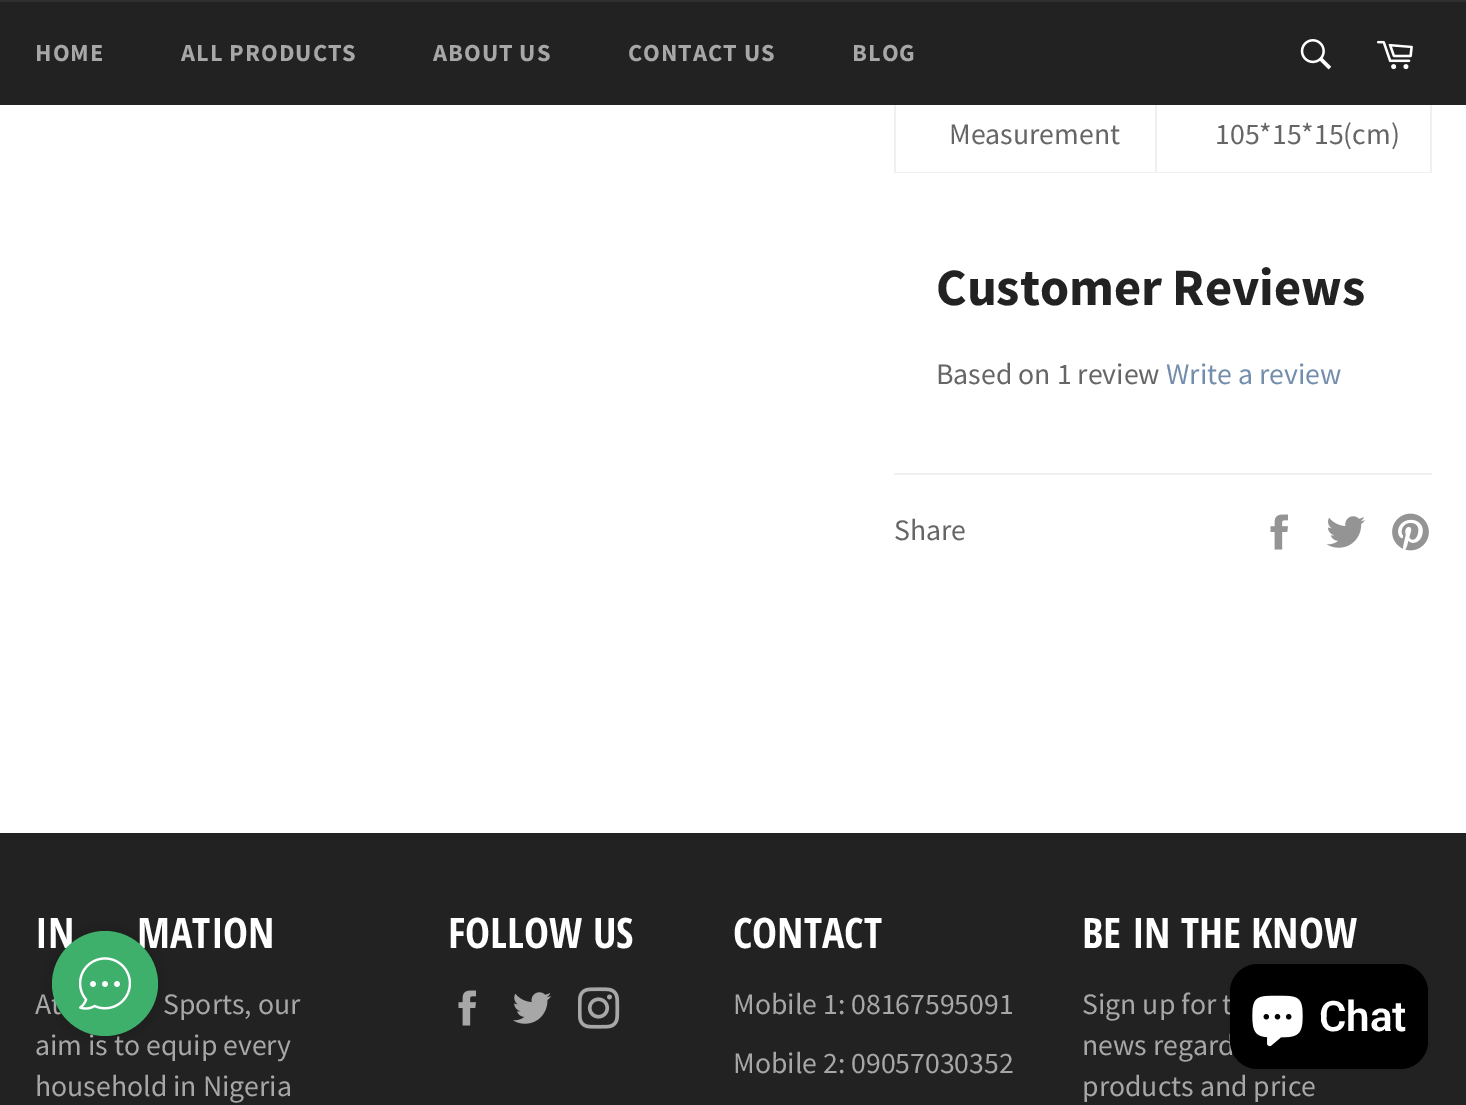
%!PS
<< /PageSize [1466 1105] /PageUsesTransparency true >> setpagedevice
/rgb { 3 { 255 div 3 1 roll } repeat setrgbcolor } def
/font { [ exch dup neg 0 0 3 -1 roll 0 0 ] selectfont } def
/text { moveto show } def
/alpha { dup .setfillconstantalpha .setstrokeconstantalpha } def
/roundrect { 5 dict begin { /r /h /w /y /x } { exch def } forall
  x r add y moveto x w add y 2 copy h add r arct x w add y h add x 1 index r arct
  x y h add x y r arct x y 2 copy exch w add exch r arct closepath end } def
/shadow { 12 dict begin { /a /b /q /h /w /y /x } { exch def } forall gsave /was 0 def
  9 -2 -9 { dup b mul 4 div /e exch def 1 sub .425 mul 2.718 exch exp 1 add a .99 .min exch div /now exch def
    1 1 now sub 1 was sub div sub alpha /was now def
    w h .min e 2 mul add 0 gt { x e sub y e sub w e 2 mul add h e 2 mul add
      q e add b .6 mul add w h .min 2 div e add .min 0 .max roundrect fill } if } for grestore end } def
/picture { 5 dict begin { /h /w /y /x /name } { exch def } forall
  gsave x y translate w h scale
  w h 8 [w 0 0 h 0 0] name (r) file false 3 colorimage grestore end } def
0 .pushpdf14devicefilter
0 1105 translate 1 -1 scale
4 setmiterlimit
255 255 255 rgb
0 0 1466 1105 rectfill
34 34 34 rgb
0 2 1466 103 rectfill
47 47 47 rgb
0 0 1466 2 rectfill
(img_01.rgb) 1300 39 32 31 picture
(img_02.rgb) 1376 40 37 30 picture
240 240 240 rgb
1430 105 2 68 rectfill
1155 172 277 1 rectfill
1155 105 2 68 rectfill
894 172 263 1 rectfill
894 105 2 68 rectfill
894 473 538 2 rectfill
(img_03.rgb) 1270 514 18 36 picture
(img_04.rgb) 1326 516 39 32 picture
(img_05.rgb) 1392 513 37 38 picture
34 34 34 rgb
0 833 1466 272 rectfill
(img_06.rgb) 458 990 18 36 picture
(img_07.rgb) 513 992 39 32 picture
(img_08.rgb) 578 987 42 42 picture
0 0 0 rgb
53 931 105 105 52.5 9 0.2 shadow
1230 964 198 105 28 4.5 0.15 shadow
/SourceSansPro-Bold 24.5 font
167 167 167 rgb
35 61 moveto 1 0 (HOME) ashow
181 61 moveto 1 0 (ALL PRODUCTS) ashow
433 61 moveto 1 0 (ABOUT US) ashow
628 61 moveto 1 0 (CONTACT US) ashow
852 61 moveto 1 0 (BLOG) ashow
/SourceSansPro-Regular 29.75 font
102 102 102 rgb
(Measurement) 949 144 text
(105*15*15\(cm\)) 1215 144 text
/SourceSansPro-Bold 52.5 font
34 34 34 rgb
(Customer Reviews) 936 305 text
/SourceSansPro-Regular 29.75 font
102 102 102 rgb
(Based on 1 review) 936 384 text
115 142 172 rgb
(Write a review) 1166 384 text
102 102 102 rgb
(Share) 894 540 text
/OpenSansCondensed-Bold 42 font
255 255 255 rgb
(IN) 35 948 text
(MATION) 137 948 text
/SourceSansPro-Regular 29.75 font
167 167 167 rgb
(At) 35 1014 text
(Sports, our) 163 1014 text
(aim is to equip every) 35 1055 text
(household in Nigeria) 35 1096 text
/OpenSansCondensed-Bold 42 font
255 255 255 rgb
(FOLLOW US) 448 948 text
(CONTACT) 733 948 text
/SourceSansPro-Regular 29.75 font
167 167 167 rgb
(Mobile 1: 08167595091) 733 1014 text
(Mobile 2: 09057030352) 733 1073 text
/OpenSansCondensed-Bold 42 font
255 255 255 rgb
(BE IN THE KNOW) 1082 948 text
/SourceSansPro-Regular 29.75 font
167 167 167 rgb
(Sign up for t) 1082 1014 text
(news regard) 1082 1055 text
(products and price) 1082 1096 text
63 175 108 rgb
105 1036 moveto -29 0 -53 -24 -53 -52 rcurveto 0 -29 24 -53 53 -53 rcurveto 29 0 53 24 53 53 rcurveto 0 28 -24 52 -53 52 rcurveto closepath fill
(img_09.rgb) 79 957 52 53 picture
0 0 0 rgb
1230 964 198 105 28 roundrect fill
(img_10.rgb) 1252 995 51 52 picture
/Roboto-SemiBold 42 font
255 255 255 rgb
(Chat) 1319 1031 text
.poppdf14devicefilter showpage
